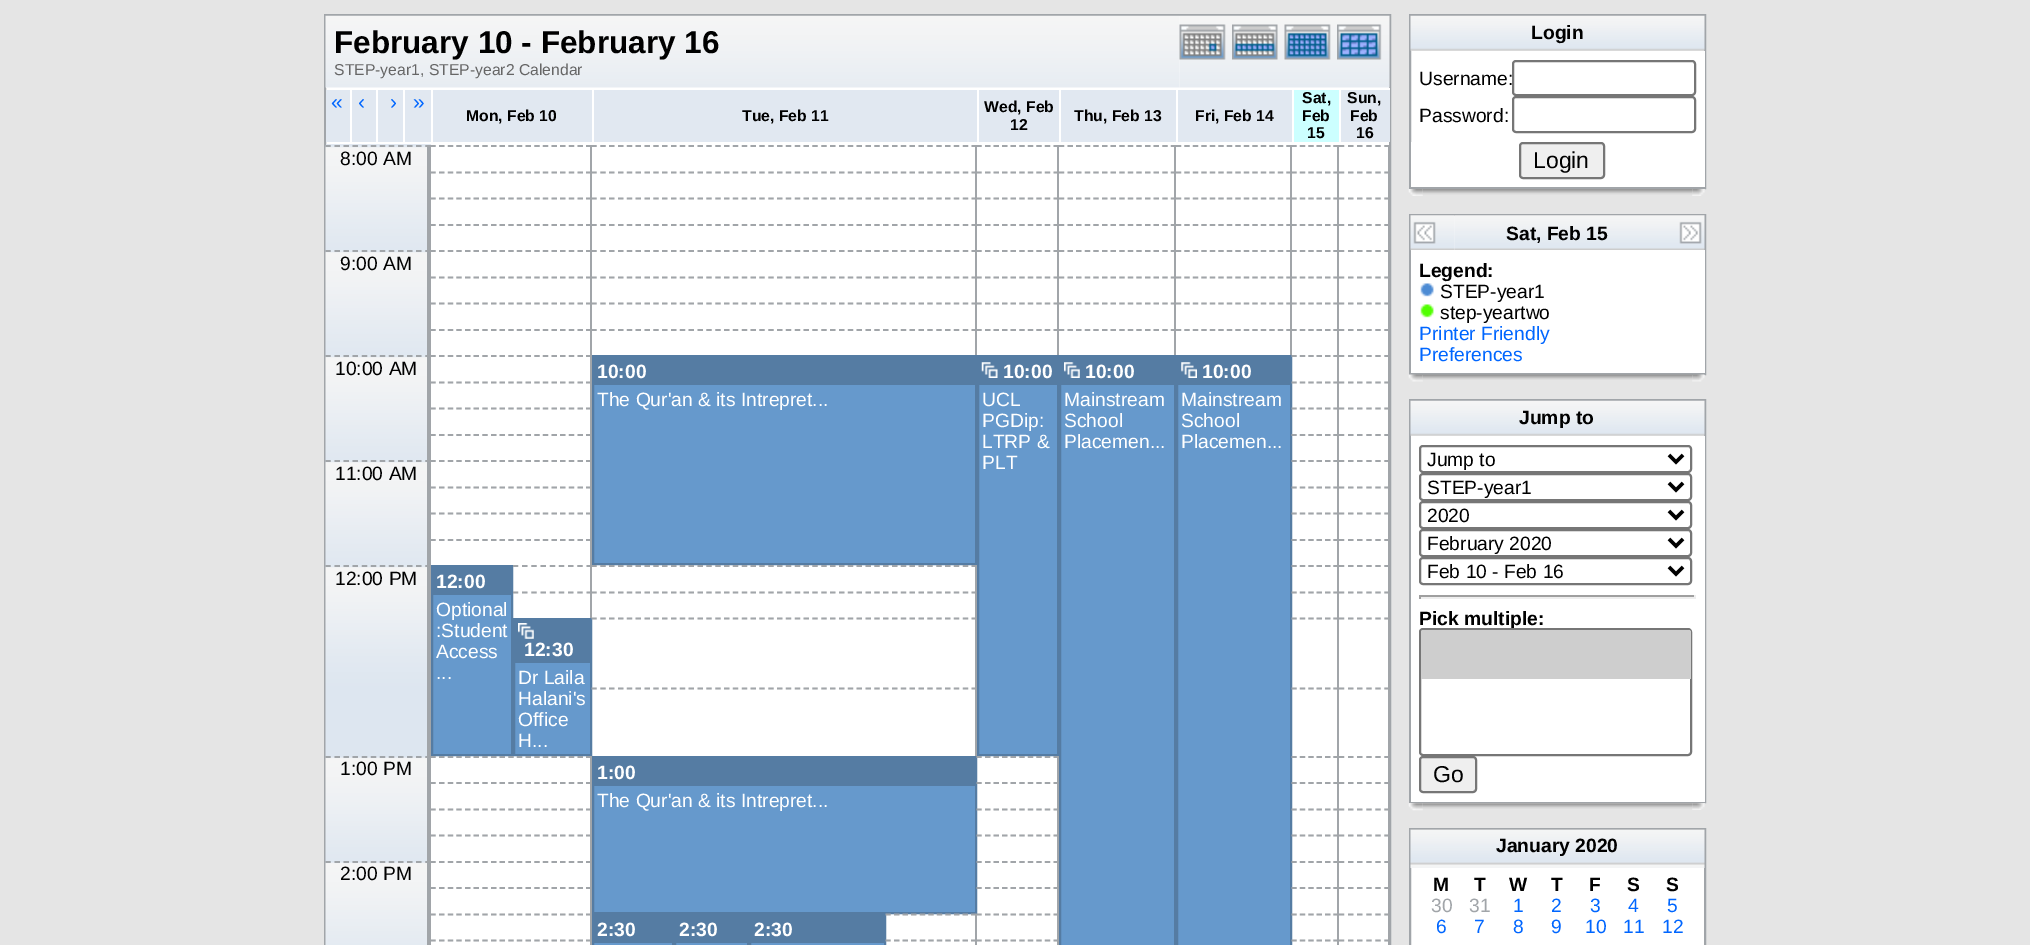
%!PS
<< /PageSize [2030 945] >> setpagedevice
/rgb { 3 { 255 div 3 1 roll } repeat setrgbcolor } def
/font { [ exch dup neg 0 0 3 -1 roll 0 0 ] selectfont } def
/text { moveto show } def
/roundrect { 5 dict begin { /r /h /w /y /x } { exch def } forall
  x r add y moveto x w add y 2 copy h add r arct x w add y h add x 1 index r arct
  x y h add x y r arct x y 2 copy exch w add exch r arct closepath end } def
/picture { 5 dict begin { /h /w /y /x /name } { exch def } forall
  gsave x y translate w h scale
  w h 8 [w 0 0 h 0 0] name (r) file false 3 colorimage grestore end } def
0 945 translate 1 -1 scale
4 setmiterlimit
229 229 229 rgb
0 0 2030 945 rectfill
255 255 255 rgb
325 15 moveto 1065 0 rlineto 0 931 rlineto -1065 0 rlineto closepath gsave fill grestore
161 165 169 rgb
2 setlinewidth
stroke
(img_01.rgb) 325 15 855 73 picture
(img_02.rgb) 1179 15 211 73 picture
(img_03.rgb) 1179 24 47 36 picture
(img_04.rgb) 1232 24 46 36 picture
(img_05.rgb) 1284 24 47 36 picture
(img_06.rgb) 1337 24 45 36 picture
225 232 241 rgb
326 90 24 52 rectfill
352 90 24 52 rectfill
378 90 25 52 rectfill
405 90 26 52 rectfill
433 90 159 52 rectfill
594 90 383 52 rectfill
979 90 80 52 rectfill
1061 90 115 52 rectfill
1178 90 114 52 rectfill
204 255 255 rgb
1294 90 45 52 rectfill
225 232 241 rgb
1341 90 49 52 rectfill
255 255 255 rgb
1389 88 1 2 rectfill
225 232 241 rgb
326 144 105 2 rectfill
(img_07.rgb) 325 145 102 106 picture
161 165 169 rgb
1.8 setlinewidth
[5.25 3.82] 0 setdash
325.5 146 moveto 105 0 rlineto stroke
427 145 4 105 rectfill
[5.25 3.4] 0 setdash
430.5 146 moveto 161 0 rlineto stroke
590 145 2 27 rectfill
[5.25 3.59] 0 setdash
591.5 146 moveto 385 0 rlineto stroke
975 145 2 27 rectfill
[5.25 3.31] 0 setdash
976.5 146 moveto 82.5 0 rlineto stroke
1057 145 2 27 rectfill
[5.25 3.36] 0 setdash
1059 146 moveto 117 0 rlineto stroke
1174 145 2 27 rectfill
[5.25 3.24] 0 setdash
1176 146 moveto 115.5 0 rlineto stroke
1290 145 2 27 rectfill
[5.25 3.15] 0 setdash
1291.5 146 moveto 47.5 0 rlineto stroke
1337 145 2 27 rectfill
[5.25 3.85] 0 setdash
1339 146 moveto 50.5 0 rlineto stroke
1388 145 1 27 rectfill
[5.25 3.4] 0 setdash
430.5 172.5 moveto 161 0 rlineto stroke
590 172 2 26 rectfill
[5.25 3.59] 0 setdash
591.5 172.5 moveto 385 0 rlineto stroke
975 172 2 26 rectfill
[5.25 3.31] 0 setdash
976.5 172.5 moveto 82.5 0 rlineto stroke
1057 172 2 26 rectfill
[5.25 3.36] 0 setdash
1059 172.5 moveto 117 0 rlineto stroke
1174 172 2 26 rectfill
[5.25 3.24] 0 setdash
1176 172.5 moveto 115.5 0 rlineto stroke
1290 172 2 26 rectfill
[5.25 3.15] 0 setdash
1291.5 172.5 moveto 47.5 0 rlineto stroke
1337 172 2 26 rectfill
[5.25 3.85] 0 setdash
1339 172.5 moveto 50.5 0 rlineto stroke
1388 172 1 26 rectfill
[5.25 3.4] 0 setdash
430.5 198.5 moveto 161 0 rlineto stroke
590 198 2 26 rectfill
[5.25 3.59] 0 setdash
591.5 198.5 moveto 385 0 rlineto stroke
975 198 2 26 rectfill
[5.25 3.31] 0 setdash
976.5 198.5 moveto 82.5 0 rlineto stroke
1057 198 2 26 rectfill
[5.25 3.36] 0 setdash
1059 198.5 moveto 117 0 rlineto stroke
1174 198 2 26 rectfill
[5.25 3.24] 0 setdash
1176 198.5 moveto 115.5 0 rlineto stroke
1290 198 2 26 rectfill
[5.25 3.15] 0 setdash
1291.5 198.5 moveto 47.5 0 rlineto stroke
1337 198 2 26 rectfill
[5.25 3.85] 0 setdash
1339 198.5 moveto 50.5 0 rlineto stroke
1388 198 1 26 rectfill
[5.25 3.4] 0 setdash
430.5 225 moveto 161 0 rlineto stroke
590 224 2 26 rectfill
[5.25 3.59] 0 setdash
591.5 225 moveto 385 0 rlineto stroke
975 224 2 26 rectfill
[5.25 3.31] 0 setdash
976.5 225 moveto 82.5 0 rlineto stroke
1057 224 2 26 rectfill
[5.25 3.36] 0 setdash
1059 225 moveto 117 0 rlineto stroke
1174 224 2 26 rectfill
[5.25 3.24] 0 setdash
1176 225 moveto 115.5 0 rlineto stroke
1290 224 2 26 rectfill
[5.25 3.15] 0 setdash
1291.5 225 moveto 47.5 0 rlineto stroke
1337 224 2 26 rectfill
[5.25 3.85] 0 setdash
1339 225 moveto 50.5 0 rlineto stroke
1388 224 1 26 rectfill
(img_08.rgb) 325 250 102 106 picture
[5.25 3.82] 0 setdash
325.5 251 moveto 105 0 rlineto stroke
427 250 4 105 rectfill
[5.25 3.4] 0 setdash
430.5 251 moveto 161 0 rlineto stroke
590 250 2 27 rectfill
[5.25 3.59] 0 setdash
591.5 251 moveto 385 0 rlineto stroke
975 250 2 27 rectfill
[5.25 3.31] 0 setdash
976.5 251 moveto 82.5 0 rlineto stroke
1057 250 2 27 rectfill
[5.25 3.36] 0 setdash
1059 251 moveto 117 0 rlineto stroke
1174 250 2 27 rectfill
[5.25 3.24] 0 setdash
1176 251 moveto 115.5 0 rlineto stroke
1290 250 2 27 rectfill
[5.25 3.15] 0 setdash
1291.5 251 moveto 47.5 0 rlineto stroke
1337 250 2 27 rectfill
[5.25 3.85] 0 setdash
1339 251 moveto 50.5 0 rlineto stroke
1388 250 1 27 rectfill
[5.25 3.4] 0 setdash
430.5 277.5 moveto 161 0 rlineto stroke
590 277 2 26 rectfill
[5.25 3.59] 0 setdash
591.5 277.5 moveto 385 0 rlineto stroke
975 277 2 26 rectfill
[5.25 3.31] 0 setdash
976.5 277.5 moveto 82.5 0 rlineto stroke
1057 277 2 26 rectfill
[5.25 3.36] 0 setdash
1059 277.5 moveto 117 0 rlineto stroke
1174 277 2 26 rectfill
[5.25 3.24] 0 setdash
1176 277.5 moveto 115.5 0 rlineto stroke
1290 277 2 26 rectfill
[5.25 3.15] 0 setdash
1291.5 277.5 moveto 47.5 0 rlineto stroke
1337 277 2 26 rectfill
[5.25 3.85] 0 setdash
1339 277.5 moveto 50.5 0 rlineto stroke
1388 277 1 26 rectfill
[5.25 3.4] 0 setdash
430.5 303.5 moveto 161 0 rlineto stroke
590 303 2 26 rectfill
[5.25 3.59] 0 setdash
591.5 303.5 moveto 385 0 rlineto stroke
975 303 2 26 rectfill
[5.25 3.31] 0 setdash
976.5 303.5 moveto 82.5 0 rlineto stroke
1057 303 2 26 rectfill
[5.25 3.36] 0 setdash
1059 303.5 moveto 117 0 rlineto stroke
1174 303 2 26 rectfill
[5.25 3.24] 0 setdash
1176 303.5 moveto 115.5 0 rlineto stroke
1290 303 2 26 rectfill
[5.25 3.15] 0 setdash
1291.5 303.5 moveto 47.5 0 rlineto stroke
1337 303 2 26 rectfill
[5.25 3.85] 0 setdash
1339 303.5 moveto 50.5 0 rlineto stroke
1388 303 1 26 rectfill
[5.25 3.4] 0 setdash
430.5 330 moveto 161 0 rlineto stroke
590 329 2 26 rectfill
[5.25 3.59] 0 setdash
591.5 330 moveto 385 0 rlineto stroke
975 329 2 26 rectfill
[5.25 3.31] 0 setdash
976.5 330 moveto 82.5 0 rlineto stroke
1057 329 2 26 rectfill
[5.25 3.36] 0 setdash
1059 330 moveto 117 0 rlineto stroke
1174 329 2 26 rectfill
[5.25 3.24] 0 setdash
1176 330 moveto 115.5 0 rlineto stroke
1290 329 2 26 rectfill
[5.25 3.15] 0 setdash
1291.5 330 moveto 47.5 0 rlineto stroke
1337 329 2 26 rectfill
[5.25 3.85] 0 setdash
1339 330 moveto 50.5 0 rlineto stroke
1388 329 1 26 rectfill
(img_08.rgb) 325 355 102 106 picture
[5.25 3.82] 0 setdash
325.5 356 moveto 105 0 rlineto stroke
427 355 4 105 rectfill
[5.25 3.4] 0 setdash
430.5 356 moveto 161 0 rlineto stroke
590 355 2 27 rectfill
102 153 204 rgb
594 385 381 178 rectfill
85 124 163 rgb
2 setlinewidth
[] 0 setdash
593 356 383 208 rectstroke
594 357 381 28 rectfill
102 153 204 rgb
979 385 78 369 rectfill
85 124 163 rgb
978 356 80 399 rectstroke
979 357 78 28 rectfill
(img_09.rgb) 981 362 17 16 picture
102 153 204 rgb
1061 385 113 560 rectfill
85 124 163 rgb
1060 356 115 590 rectstroke
1061 357 113 28 rectfill
(img_10.rgb) 1064 362 16 16 picture
102 153 204 rgb
1178 385 112 560 rectfill
85 124 163 rgb
1177 356 114 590 rectstroke
1178 357 112 28 rectfill
(img_11.rgb) 1181 362 16 16 picture
161 165 169 rgb
1.8 setlinewidth
[5.25 3.15] 0 setdash
1291.5 356 moveto 47.5 0 rlineto stroke
1337 355 2 27 rectfill
[5.25 3.85] 0 setdash
1339 356 moveto 50.5 0 rlineto stroke
1388 355 1 27 rectfill
[5.25 3.4] 0 setdash
430.5 382.5 moveto 161 0 rlineto stroke
590 382 2 26 rectfill
[5.25 3.15] 0 setdash
1291.5 382.5 moveto 47.5 0 rlineto stroke
1337 382 2 26 rectfill
[5.25 3.85] 0 setdash
1339 382.5 moveto 50.5 0 rlineto stroke
1388 382 1 26 rectfill
[5.25 3.4] 0 setdash
430.5 408.5 moveto 161 0 rlineto stroke
590 408 2 26 rectfill
[5.25 3.15] 0 setdash
1291.5 408.5 moveto 47.5 0 rlineto stroke
1337 408 2 26 rectfill
[5.25 3.85] 0 setdash
1339 408.5 moveto 50.5 0 rlineto stroke
1388 408 1 26 rectfill
[5.25 3.4] 0 setdash
430.5 435 moveto 161 0 rlineto stroke
590 434 2 26 rectfill
[5.25 3.15] 0 setdash
1291.5 435 moveto 47.5 0 rlineto stroke
1337 434 2 26 rectfill
[5.25 3.85] 0 setdash
1339 435 moveto 50.5 0 rlineto stroke
1388 434 1 26 rectfill
(img_12.rgb) 325 460 102 106 picture
[5.25 3.82] 0 setdash
325.5 461 moveto 105 0 rlineto stroke
427 460 4 105 rectfill
[5.25 3.4] 0 setdash
430.5 461 moveto 161 0 rlineto stroke
590 460 2 27 rectfill
[5.25 3.15] 0 setdash
1291.5 461 moveto 47.5 0 rlineto stroke
1337 460 2 27 rectfill
[5.25 3.85] 0 setdash
1339 461 moveto 50.5 0 rlineto stroke
1388 460 1 27 rectfill
[5.25 3.4] 0 setdash
430.5 487.5 moveto 161 0 rlineto stroke
590 487 2 26 rectfill
[5.25 3.15] 0 setdash
1291.5 487.5 moveto 47.5 0 rlineto stroke
1337 487 2 26 rectfill
[5.25 3.85] 0 setdash
1339 487.5 moveto 50.5 0 rlineto stroke
1388 487 1 26 rectfill
[5.25 3.4] 0 setdash
430.5 513.5 moveto 161 0 rlineto stroke
590 513 2 26 rectfill
[5.25 3.15] 0 setdash
1291.5 513.5 moveto 47.5 0 rlineto stroke
1337 513 2 26 rectfill
[5.25 3.85] 0 setdash
1339 513.5 moveto 50.5 0 rlineto stroke
1388 513 1 26 rectfill
[5.25 3.4] 0 setdash
430.5 540 moveto 161 0 rlineto stroke
590 539 2 26 rectfill
[5.25 3.15] 0 setdash
1291.5 540 moveto 47.5 0 rlineto stroke
1337 539 2 26 rectfill
[5.25 3.85] 0 setdash
1339 540 moveto 50.5 0 rlineto stroke
1388 539 1 26 rectfill
(img_13.rgb) 325 565 102 191 picture
[5.25 3.82] 0 setdash
325.5 566 moveto 105 0 rlineto stroke
427 565 4 191 rectfill
102 153 204 rgb
433 595 78 159 rectfill
85 124 163 rgb
2 setlinewidth
[] 0 setdash
432 566 80 189 rectstroke
433 567 78 28 rectfill
161 165 169 rgb
1.8 setlinewidth
[5.25 3.94] 0 setdash
513 566 moveto 78.5 0 rlineto stroke
590 565 2 27 rectfill
[5.25 3.59] 0 setdash
591.5 566 moveto 385 0 rlineto stroke
975 565 2 27 rectfill
[5.25 3.15] 0 setdash
1291.5 566 moveto 47.5 0 rlineto stroke
1337 565 2 27 rectfill
[5.25 3.85] 0 setdash
1339 566 moveto 50.5 0 rlineto stroke
1388 565 1 27 rectfill
[5.25 3.94] 0 setdash
513 592.5 moveto 78.5 0 rlineto stroke
590 592 2 26 rectfill
[5.25 3.59] 0 setdash
591.5 592.5 moveto 385 0 rlineto stroke
975 592 2 26 rectfill
[5.25 3.15] 0 setdash
1291.5 592.5 moveto 47.5 0 rlineto stroke
1337 592 2 26 rectfill
[5.25 3.85] 0 setdash
1339 592.5 moveto 50.5 0 rlineto stroke
1388 592 1 26 rectfill
102 153 204 rgb
515 663 75 91 rectfill
85 124 163 rgb
2 setlinewidth
[] 0 setdash
514 619 77 136 rectstroke
515 620 75 43 rectfill
(img_14.rgb) 518 623 16 16 picture
161 165 169 rgb
1.8 setlinewidth
[5.25 3.59] 0 setdash
591.5 618.5 moveto 385 0 rlineto stroke
975 618 2 70 rectfill
[5.25 3.15] 0 setdash
1291.5 618.5 moveto 47.5 0 rlineto stroke
1337 618 2 70 rectfill
[5.25 3.85] 0 setdash
1339 618.5 moveto 50.5 0 rlineto stroke
1388 618 1 70 rectfill
[5.25 3.59] 0 setdash
591.5 688.5 moveto 385 0 rlineto stroke
975 688 2 68 rectfill
[5.25 3.15] 0 setdash
1291.5 688.5 moveto 47.5 0 rlineto stroke
1337 688 2 68 rectfill
[5.25 3.85] 0 setdash
1339 688.5 moveto 50.5 0 rlineto stroke
1388 688 1 68 rectfill
(img_15.rgb) 325 756 102 105 picture
[5.25 3.82] 0 setdash
325.5 757 moveto 105 0 rlineto stroke
427 756 4 105 rectfill
[5.25 3.4] 0 setdash
430.5 757 moveto 161 0 rlineto stroke
590 756 2 26 rectfill
102 153 204 rgb
594 786 381 126 rectfill
85 124 163 rgb
2 setlinewidth
[] 0 setdash
593 757 383 156 rectstroke
594 758 381 28 rectfill
161 165 169 rgb
1.8 setlinewidth
[5.25 3.31] 0 setdash
976.5 757 moveto 82.5 0 rlineto stroke
1057 756 2 26 rectfill
[5.25 3.15] 0 setdash
1291.5 757 moveto 47.5 0 rlineto stroke
1337 756 2 26 rectfill
[5.25 3.85] 0 setdash
1339 757 moveto 50.5 0 rlineto stroke
1388 756 1 26 rectfill
[5.25 3.4] 0 setdash
430.5 783 moveto 161 0 rlineto stroke
590 782 2 27 rectfill
[5.25 3.31] 0 setdash
976.5 783 moveto 82.5 0 rlineto stroke
1057 782 2 27 rectfill
[5.25 3.15] 0 setdash
1291.5 783 moveto 47.5 0 rlineto stroke
1337 782 2 27 rectfill
[5.25 3.85] 0 setdash
1339 783 moveto 50.5 0 rlineto stroke
1388 782 1 27 rectfill
[5.25 3.4] 0 setdash
430.5 809.5 moveto 161 0 rlineto stroke
590 809 2 26 rectfill
[5.25 3.31] 0 setdash
976.5 809.5 moveto 82.5 0 rlineto stroke
1057 809 2 26 rectfill
[5.25 3.15] 0 setdash
1291.5 809.5 moveto 47.5 0 rlineto stroke
1337 809 2 26 rectfill
[5.25 3.85] 0 setdash
1339 809.5 moveto 50.5 0 rlineto stroke
1388 809 1 26 rectfill
[5.25 3.4] 0 setdash
430.5 835.5 moveto 161 0 rlineto stroke
590 835 2 26 rectfill
[5.25 3.31] 0 setdash
976.5 835.5 moveto 82.5 0 rlineto stroke
1057 835 2 26 rectfill
[5.25 3.15] 0 setdash
1291.5 835.5 moveto 47.5 0 rlineto stroke
1337 835 2 26 rectfill
[5.25 3.85] 0 setdash
1339 835.5 moveto 50.5 0 rlineto stroke
1388 835 1 26 rectfill
(img_16.rgb) 325 861 102 84 picture
[5.25 3.82] 0 setdash
325.5 862 moveto 105 0 rlineto stroke
427 861 4 84 rectfill
[5.25 3.4] 0 setdash
430.5 862 moveto 161 0 rlineto stroke
590 861 2 26 rectfill
[5.25 3.31] 0 setdash
976.5 862 moveto 82.5 0 rlineto stroke
1057 861 2 26 rectfill
[5.25 3.15] 0 setdash
1291.5 862 moveto 47.5 0 rlineto stroke
1337 861 2 26 rectfill
[5.25 3.85] 0 setdash
1339 862 moveto 50.5 0 rlineto stroke
1388 861 1 26 rectfill
[5.25 3.4] 0 setdash
430.5 888 moveto 161 0 rlineto stroke
590 887 2 27 rectfill
[5.25 3.31] 0 setdash
976.5 888 moveto 82.5 0 rlineto stroke
1057 887 2 27 rectfill
[5.25 3.15] 0 setdash
1291.5 888 moveto 47.5 0 rlineto stroke
1337 887 2 27 rectfill
[5.25 3.85] 0 setdash
1339 888 moveto 50.5 0 rlineto stroke
1388 887 1 27 rectfill
[5.25 3.4] 0 setdash
430.5 914.5 moveto 161 0 rlineto stroke
590 914 2 26 rectfill
102 153 204 rgb
594 943 78 2 rectfill
85 124 163 rgb
2 setlinewidth
[] 0 setdash
593 915 80 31 rectstroke
594 916 78 27 rectfill
102 153 204 rgb
676 943 71 2 rectfill
85 124 163 rgb
675 915 73 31 rectstroke
676 916 71 27 rectfill
102 153 204 rgb
751 943 133 2 rectfill
85 124 163 rgb
750 915 135 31 rectstroke
751 916 133 27 rectfill
161 165 169 rgb
1.8 setlinewidth
[5.25 3.32] 0 setdash
885.5 914.5 moveto 91 0 rlineto stroke
975 914 2 26 rectfill
[5.25 3.31] 0 setdash
976.5 914.5 moveto 82.5 0 rlineto stroke
1057 914 2 26 rectfill
[5.25 3.15] 0 setdash
1291.5 914.5 moveto 47.5 0 rlineto stroke
1337 914 2 26 rectfill
[5.25 3.85] 0 setdash
1339 914.5 moveto 50.5 0 rlineto stroke
1388 914 1 26 rectfill
[5.25 3.4] 0 setdash
430.5 940.5 moveto 161 0 rlineto stroke
590 940 2 5 rectfill
[5.25 3.32] 0 setdash
885.5 940.5 moveto 91 0 rlineto stroke
975 940 2 5 rectfill
[5.25 3.31] 0 setdash
976.5 940.5 moveto 82.5 0 rlineto stroke
1057 940 2 5 rectfill
[5.25 3.15] 0 setdash
1291.5 940.5 moveto 47.5 0 rlineto stroke
1337 940 2 5 rectfill
[5.25 3.85] 0 setdash
1339 940.5 moveto 50.5 0 rlineto stroke
1388 940 1 5 rectfill
255 255 255 rgb
1411 50 293 92 rectfill
161 165 169 rgb
2 setlinewidth
[] 0 setdash
1410 15 295 173 rectstroke
(img_17.rgb) 1410 15 295 36 picture
255 255 255 rgb
1704 51 1 91 rectfill
118 118 118 rgb
1513 61 182 34 3 roundrect stroke
1513 97 182 35 3 roundrect stroke
255 255 255 rgb
1411 142 294 45 rectfill
239 239 239 rgb
1520 143 84 35 3 roundrect gsave fill grestore
118 118 118 rgb
stroke
(img_18.rgb) 1408 189 15 7 picture
(img_19.rgb) 1422 189 271 6 picture
(img_20.rgb) 1692 189 13 7 picture
161 165 169 rgb
1410 215 295 159 rectstroke
(img_21.rgb) 1410 215 45 36 picture
(img_22.rgb) 1413 221 23 23 picture
(img_23.rgb) 1454 215 205 35 picture
(img_24.rgb) 1659 215 46 35 picture
(img_25.rgb) 1679 221 23 23 picture
255 255 255 rgb
1411 250 294 123 rectfill
(img_26.rgb) 1420 283 14 14 picture
(img_27.rgb) 1420 304 14 14 picture
(img_28.rgb) 1408 374 15 8 picture
(img_29.rgb) 1422 374 271 6 picture
(img_30.rgb) 1692 374 13 8 picture
161 165 169 rgb
1410 400 295 402 rectstroke
(img_17.rgb) 1410 400 295 36 picture
255 255 255 rgb
1411 436 294 366 rectfill
118 118 118 rgb
1420 446 271 26 3 roundrect stroke
0 0 0 rgb
3.5 setlinewidth
1669 455 moveto 7 7 rlineto 7 -7 rlineto stroke
118 118 118 rgb
2 setlinewidth
1420 474 271 26 3 roundrect stroke
0 0 0 rgb
3.5 setlinewidth
1669 483 moveto 7 7 rlineto 7 -7 rlineto stroke
118 118 118 rgb
2 setlinewidth
1420 502 271 26 3 roundrect stroke
0 0 0 rgb
3.5 setlinewidth
1669 511 moveto 7 7 rlineto 7 -7 rlineto stroke
118 118 118 rgb
2 setlinewidth
1420 530 271 26 3 roundrect stroke
0 0 0 rgb
3.5 setlinewidth
1669 539 moveto 7 7 rlineto 7 -7 rlineto stroke
118 118 118 rgb
2 setlinewidth
1420 558 271 26 3 roundrect stroke
0 0 0 rgb
3.5 setlinewidth
1669 567 moveto 7 7 rlineto 7 -7 rlineto stroke
159 159 159 rgb
1419 595 277 2 rectfill
238 238 238 rgb
1694 595 2 4 rectfill
1419 597 277 2 rectfill
159 159 159 rgb
1419 595 2 4 rectfill
239 239 239 rgb
1420 757 56 35 3 roundrect gsave fill grestore
118 118 118 rgb
2 setlinewidth
stroke
(img_31.rgb) 1408 803 15 8 picture
(img_32.rgb) 1422 803 271 6 picture
(img_33.rgb) 1692 803 13 7 picture
255 255 255 rgb
1411 868 293 77 rectfill
161 165 169 rgb
1410 829 295 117 rectstroke
(img_34.rgb) 1410 829 295 39 picture
/LiberationSans-Bold 31.5 font
0 0 0 rgb
(February 10 - February 16) 334 53 text
/LiberationSans-Regular 15.75 font
102 102 102 rgb
(STEP-year1, STEP-year2 Calendar) 334 75 text
/LiberationSans-Regular 21 font
0 102 255 rgb
(«) 331 109 text
(‹) 358 109 text
(›) 390 109 text
(») 413 109 text
/LiberationSans-Bold 15.75 font
0 0 0 rgb
(Mon, Feb 10) 466 121 text
(Tue, Feb 11) 742 121 text
(Wed, Feb) 984 112 text
(12) 1010 130 text
(Thu, Feb 13) 1074 121 text
(Fri, Feb 14) 1195 121 text
(Sat,) 1302 103 text
(Feb) 1302 121 text
(15) 1307 138 text
(Sun,) 1347 103 text
(Feb) 1350 121 text
(16) 1356 138 text
/LiberationSans-Regular 19.25 font
(8:00 AM) 340 165 text
(9:00 AM) 340 270 text
(10:00 AM) 335 375 text
/LiberationSans-Bold 19.25 font
255 255 255 rgb
(10:00) 597 378 text
/LiberationSans-Regular 19.25 font
(The Qur'an & its Intrepret...) 597 406 text
/LiberationSans-Bold 19.25 font
(10:00) 1003 378 text
/LiberationSans-Regular 19.25 font
(UCL) 982 406 text
(PGDip:) 982 427 text
(LTRP &) 982 448 text
(PLT) 982 469 text
/LiberationSans-Bold 19.25 font
(10:00) 1085 378 text
/LiberationSans-Regular 19.25 font
(Mainstream) 1064 406 text
(School) 1064 427 text
(Placemen...) 1064 448 text
/LiberationSans-Bold 19.25 font
(10:00) 1202 378 text
/LiberationSans-Regular 19.25 font
(Mainstream) 1181 406 text
(School) 1181 427 text
(Placemen...) 1181 448 text
0 0 0 rgb
(11:00 AM) 335 480 text
(12:00 PM) 335 585 text
/LiberationSans-Bold 19.25 font
255 255 255 rgb
(12:00) 436 588 text
/LiberationSans-Regular 19.25 font
(Optional) 436 616 text
(:Student) 436 637 text
(Access) 436 658 text
(...) 436 679 text
/LiberationSans-Bold 19.25 font
(12:30) 524 656 text
/LiberationSans-Regular 19.25 font
(Dr Laila) 518 684 text
(Halani's) 518 705 text
(Office) 518 726 text
(H...) 518 747 text
0 0 0 rgb
(1:00 PM) 340 775 text
/LiberationSans-Bold 19.25 font
255 255 255 rgb
(1:00) 597 779 text
/LiberationSans-Regular 19.25 font
(The Qur'an & its Intrepret...) 597 807 text
0 0 0 rgb
(2:00 PM) 340 880 text
/LiberationSans-Bold 19.25 font
255 255 255 rgb
(2:30) 597 936 text
(2:30) 679 936 text
(2:30) 754 936 text
0 0 0 rgb
(Login) 1531 39 text
/LiberationSans-Regular 19.25 font
(Username:) 1419 85 text
(Password:) 1419 122 text
/LiberationSans-Regular 23 font
(Login) 1533 168 text
/LiberationSans-Bold 19.25 font
(Sat, Feb 15) 1506 240 text
(Legend:) 1419 277 text
/LiberationSans-Regular 19.25 font
(STEP-year1) 1440 298 text
(step-yeartwo) 1440 319 text
0 102 255 rgb
(Printer Friendly) 1419 340 text
(Preferences) 1419 361 text
/LiberationSans-Bold 19.25 font
0 0 0 rgb
(Jump to) 1519 424 text
/LiberationSans-Regular 19.25 font
(Jump to) 1427 466 text
(STEP-year1) 1427 494 text
(2020) 1427 522 text
(February 2020) 1427 550 text
(Feb 10 - Feb 16) 1427 578 text
/LiberationSans-Bold 19.25 font
(Pick multiple:) 1419 625 text
255 255 255 rgb
1420 629 271 126 3 roundrect gsave fill grestore
118 118 118 rgb
stroke
206 206 206 rgb
1423 630 moveto 266 0 rlineto 1 0 2 1 2 2 rcurveto 0 23 rlineto -270 0 rlineto 0 -23 rlineto 0 -1 1 -2 2 -2 rcurveto closepath fill
1421 655 270 24 rectfill
/LiberationSans-Regular 23 font
0 0 0 rgb
(Go) 1433 782 text
/LiberationSans-Bold 19.25 font
(January 2020) 1496 852 text
(M) 1433 891 text
(T) 1474 891 text
(W) 1509 891 text
(T) 1551 891 text
(F) 1589 891 text
(S) 1627 891 text
(S) 1666 891 text
/LiberationSans-Regular 19.25 font
161 165 169 rgb
(30) 1431 912 text
(31) 1469 912 text
0 102 255 rgb
(1) 1513 912 text
(2) 1551 912 text
(3) 1590 912 text
(4) 1628 912 text
(5) 1667 912 text
(6) 1436 933 text
(7) 1474 933 text
(8) 1513 933 text
(9) 1551 933 text
(10) 1585 933 text
(11) 1623 933 text
(12) 1662 933 text
showpage
